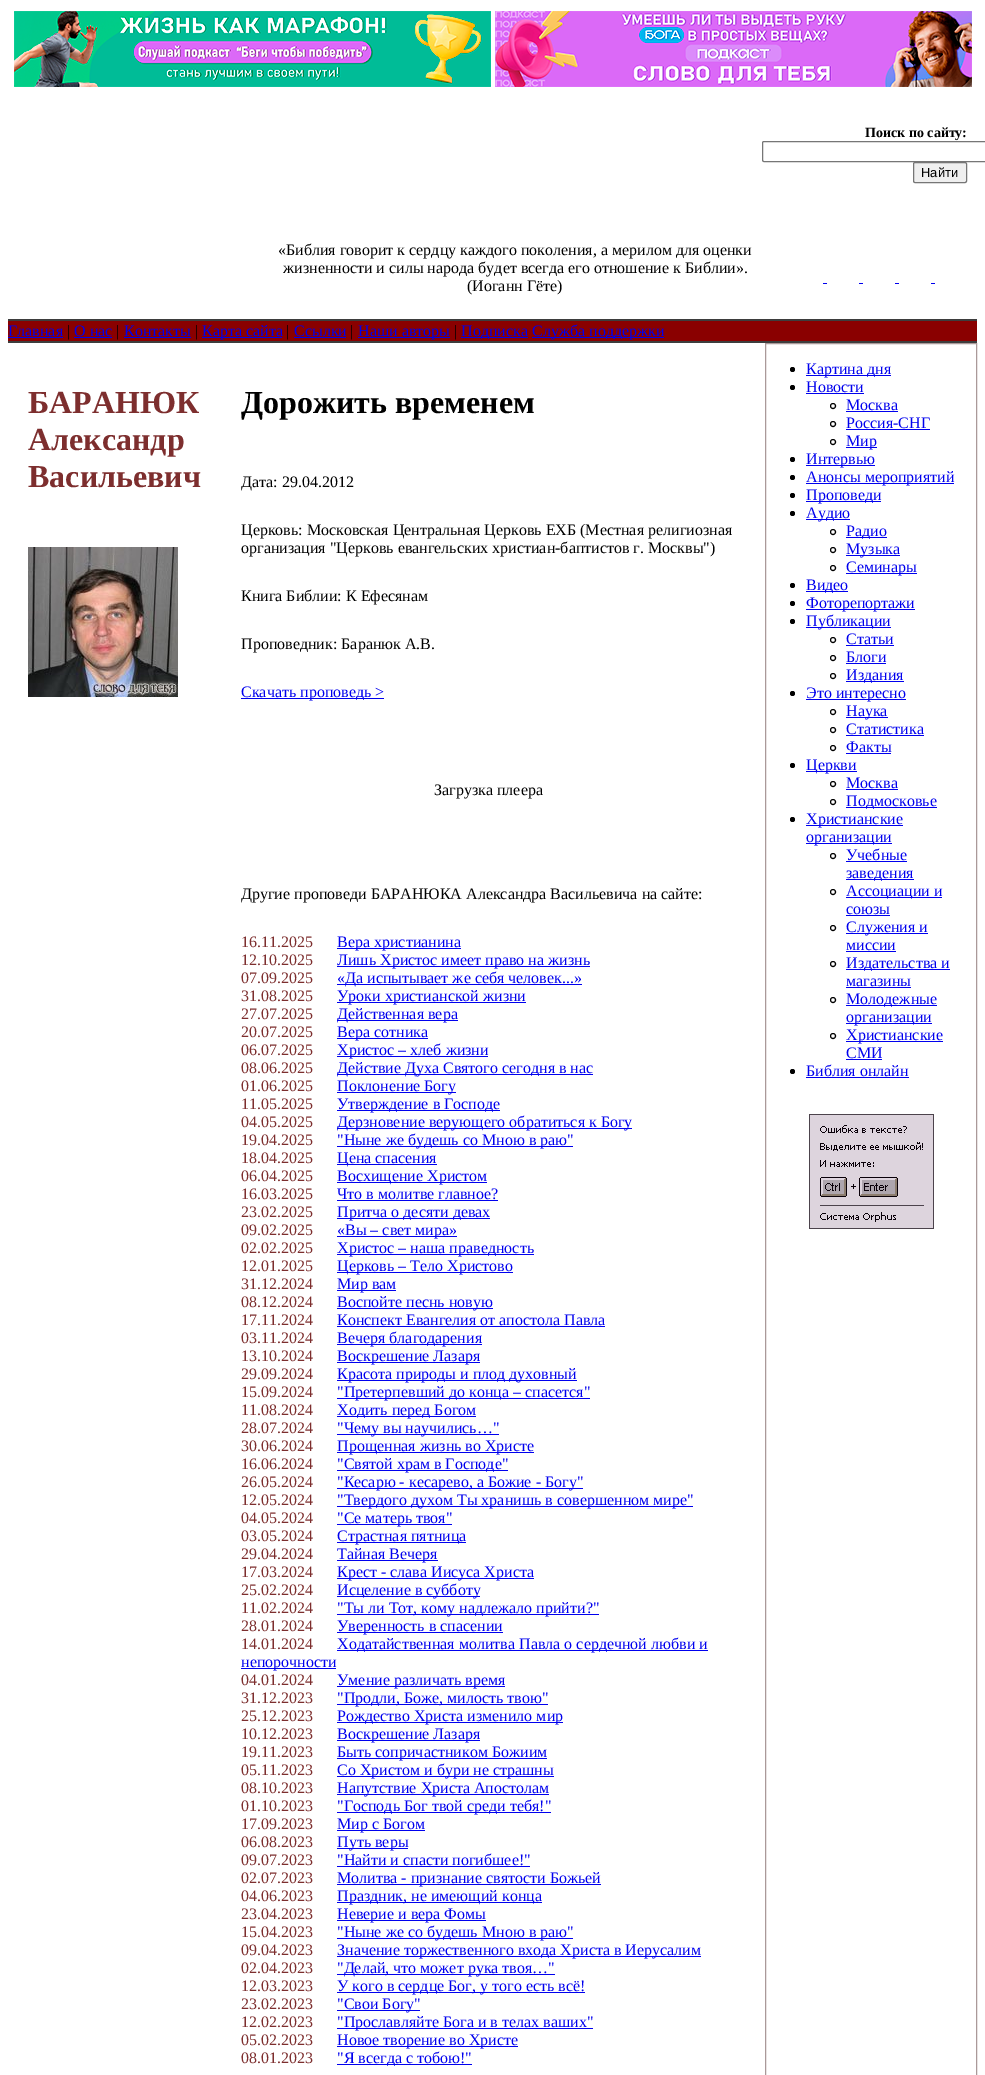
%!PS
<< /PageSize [985 2075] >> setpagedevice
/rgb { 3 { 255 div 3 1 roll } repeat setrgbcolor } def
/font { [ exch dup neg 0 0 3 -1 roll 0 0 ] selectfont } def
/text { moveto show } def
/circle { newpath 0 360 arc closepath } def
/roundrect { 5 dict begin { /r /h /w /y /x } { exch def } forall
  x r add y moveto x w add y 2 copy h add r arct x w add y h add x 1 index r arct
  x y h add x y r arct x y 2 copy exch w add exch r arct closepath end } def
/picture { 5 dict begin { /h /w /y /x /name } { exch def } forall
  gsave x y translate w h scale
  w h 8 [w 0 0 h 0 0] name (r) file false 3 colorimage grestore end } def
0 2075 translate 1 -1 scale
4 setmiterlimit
255 255 255 rgb
0 0 985 2075 rectfill
(img_01.rgb) 14 11 477 76 picture
(img_02.rgb) 495 11 477 76 picture
118 118 118 rgb
762.5 141.5 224 20 1.5 roundrect stroke
239 239 239 rgb
913.5 162.5 53 20 1.5 roundrect gsave fill grestore
118 118 118 rgb
stroke
0 0 238 rgb
823 283 4 1 rectfill
859 283 4 1 rectfill
895 283 4 1 rectfill
931 283 4 1 rectfill
61 61 61 rgb
8 319 969 2 rectfill
138 0 0 rgb
8 321 969 20 rectfill
0 0 238 rgb
8 337 55 1 rectfill
74 337 38 1 rectfill
124 337 67 1 rectfill
202 337 80 1 rectfill
294 337 52 1 rectfill
358 337 92 1 rectfill
461 337 67 1 rectfill
532 337 132 1 rectfill
61 61 61 rgb
8 341 969 2 rectfill
(img_03.rgb) 28 547 150 150 picture
0 0 238 rgb
241 698 143 1 rectfill
337 948 124 1 rectfill
337 966 253 1 rectfill
337 984 245 1 rectfill
337 1002 189 1 rectfill
337 1020 121 1 rectfill
337 1038 91 1 rectfill
337 1056 151 1 rectfill
337 1074 256 1 rectfill
337 1092 119 1 rectfill
337 1110 163 1 rectfill
337 1128 295 1 rectfill
337 1146 236 1 rectfill
337 1164 100 1 rectfill
337 1182 150 1 rectfill
337 1200 161 1 rectfill
337 1218 153 1 rectfill
337 1236 120 1 rectfill
337 1254 197 1 rectfill
337 1272 176 1 rectfill
337 1290 59 1 rectfill
337 1308 156 1 rectfill
337 1326 268 1 rectfill
337 1344 145 1 rectfill
337 1362 143 1 rectfill
337 1380 240 1 rectfill
337 1398 253 1 rectfill
337 1416 139 1 rectfill
337 1434 162 1 rectfill
337 1452 197 1 rectfill
337 1470 171 1 rectfill
337 1488 246 1 rectfill
337 1506 356 1 rectfill
337 1524 115 1 rectfill
337 1542 129 1 rectfill
337 1560 101 1 rectfill
337 1578 197 1 rectfill
337 1596 143 1 rectfill
337 1614 262 1 rectfill
337 1632 166 1 rectfill
337 1650 371 1 rectfill
241 1668 95 1 rectfill
337 1686 168 1 rectfill
337 1704 211 1 rectfill
337 1722 226 1 rectfill
337 1740 143 1 rectfill
337 1758 210 1 rectfill
337 1776 217 1 rectfill
337 1794 212 1 rectfill
337 1812 214 1 rectfill
337 1830 88 1 rectfill
337 1848 71 1 rectfill
337 1866 193 1 rectfill
337 1884 264 1 rectfill
337 1902 205 1 rectfill
337 1920 149 1 rectfill
337 1938 236 1 rectfill
337 1956 364 1 rectfill
337 1974 218 1 rectfill
337 1992 248 1 rectfill
337 2010 83 1 rectfill
337 2028 256 1 rectfill
337 2046 181 1 rectfill
337 2064 135 1 rectfill
170 153 153 rgb
765.5 343.5 211 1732 rectstroke
0 0 0 rgb
792.5 369.5 2.5 circle fill
0 0 238 rgb
806 375 85 1 rectfill
0 0 0 rgb
792.5 387.5 2.5 circle fill
0 0 238 rgb
806 393 58 1 rectfill
0 0 0 rgb
833 406 2.5 circle stroke
0 0 238 rgb
846 411 52 1 rectfill
0 0 0 rgb
833 424 2.5 circle stroke
0 0 238 rgb
846 429 84 1 rectfill
0 0 0 rgb
833 442 2.5 circle stroke
0 0 238 rgb
846 447 31 1 rectfill
0 0 0 rgb
792.5 459.5 2.5 circle fill
0 0 238 rgb
806 465 69 1 rectfill
0 0 0 rgb
792.5 477.5 2.5 circle fill
0 0 238 rgb
806 483 148 1 rectfill
0 0 0 rgb
792.5 495.5 2.5 circle fill
0 0 238 rgb
806 501 75 1 rectfill
0 0 0 rgb
792.5 513.5 2.5 circle fill
0 0 238 rgb
806 519 44 1 rectfill
0 0 0 rgb
833 532 2.5 circle stroke
0 0 238 rgb
846 537 41 1 rectfill
0 0 0 rgb
833 550 2.5 circle stroke
0 0 238 rgb
846 555 54 1 rectfill
0 0 0 rgb
833 568 2.5 circle stroke
0 0 238 rgb
846 573 71 1 rectfill
0 0 0 rgb
792.5 585.5 2.5 circle fill
0 0 238 rgb
806 591 42 1 rectfill
0 0 0 rgb
792.5 603.5 2.5 circle fill
0 0 238 rgb
806 609 109 1 rectfill
0 0 0 rgb
792.5 621.5 2.5 circle fill
0 0 238 rgb
806 627 85 1 rectfill
0 0 0 rgb
833 640 2.5 circle stroke
0 0 238 rgb
846 645 48 1 rectfill
0 0 0 rgb
833 658 2.5 circle stroke
0 0 238 rgb
846 663 40 1 rectfill
0 0 0 rgb
833 676 2.5 circle stroke
0 0 238 rgb
846 681 58 1 rectfill
0 0 0 rgb
792.5 693.5 2.5 circle fill
0 0 238 rgb
806 699 100 1 rectfill
0 0 0 rgb
833 712 2.5 circle stroke
0 0 238 rgb
846 717 42 1 rectfill
0 0 0 rgb
833 730 2.5 circle stroke
0 0 238 rgb
846 735 78 1 rectfill
0 0 0 rgb
833 748 2.5 circle stroke
0 0 238 rgb
846 753 45 1 rectfill
0 0 0 rgb
792.5 765.5 2.5 circle fill
0 0 238 rgb
806 771 51 1 rectfill
0 0 0 rgb
833 784 2.5 circle stroke
0 0 238 rgb
846 789 52 1 rectfill
0 0 0 rgb
833 802 2.5 circle stroke
0 0 238 rgb
846 807 91 1 rectfill
0 0 0 rgb
792.5 819.5 2.5 circle fill
0 0 238 rgb
806 825 97 1 rectfill
806 843 86 1 rectfill
0 0 0 rgb
833 856 2.5 circle stroke
0 0 238 rgb
846 861 61 1 rectfill
846 879 68 1 rectfill
0 0 0 rgb
833 892 2.5 circle stroke
0 0 238 rgb
846 897 96 1 rectfill
846 915 44 1 rectfill
0 0 0 rgb
833 928 2.5 circle stroke
0 0 238 rgb
846 933 82 1 rectfill
846 951 50 1 rectfill
0 0 0 rgb
833 964 2.5 circle stroke
0 0 238 rgb
846 969 104 1 rectfill
846 987 65 1 rectfill
0 0 0 rgb
833 1000 2.5 circle stroke
0 0 238 rgb
846 1005 91 1 rectfill
846 1023 86 1 rectfill
0 0 0 rgb
833 1036 2.5 circle stroke
0 0 238 rgb
846 1041 97 1 rectfill
846 1059 36 1 rectfill
0 0 0 rgb
792.5 1071.5 2.5 circle fill
0 0 238 rgb
806 1077 103 1 rectfill
(img_04.rgb) 809 1114 125 115 picture
/LiberationSerif-Bold 14 font
0 0 0 rgb
(Поиск по сайту:) 865 137 text
/LiberationSans-Regular 13 font
(Найти) 921 177 text
/LiberationSerif-Regular 16 font
(«Библия говорит к сердцу каждого поколения, а мерилом для оценки) 278 255 text
(жизненности и силы народа будет всегда его отношение к Библии».) 283 273 text
(\(Иоганн Гёте\)) 467 291 text
0 0 238 rgb
(Главная) 8 336 text
0 0 0 rgb
(|) 67 336 text
0 0 238 rgb
(О нас) 74 336 text
0 0 0 rgb
(|) 116 336 text
0 0 238 rgb
(Контакты) 124 336 text
0 0 0 rgb
(|) 195 336 text
0 0 238 rgb
(Карта сайта) 202 336 text
0 0 0 rgb
(|) 286 336 text
0 0 238 rgb
(Ссылки) 294 336 text
0 0 0 rgb
(|) 350 336 text
0 0 238 rgb
(Наши авторы) 358 336 text
0 0 0 rgb
(|) 454 336 text
0 0 238 rgb
(Подписка) 461 336 text
(Служба поддержки) 532 336 text
/LiberationSerif-Bold 32 font
125 46 46 rgb
(БАРАНЮК) 28 413 text
(Александр) 28 450 text
(Васильевич) 28 487 text
0 0 0 rgb
(Дорожить временем) 241 413 text
/LiberationSerif-Regular 16 font
(Дата: 29.04.2012) 241 487 text
(Церковь: Московская Центральная Церковь ЕХБ \(Местная религиозная) 241 535 text
(организация "Церковь евангельских христиан-баптистов г. Москвы"\)) 241 553 text
(Книга Библии: К Ефесянам) 241 601 text
(Проповедник: Баранюк А.В.) 241 649 text
0 0 238 rgb
(Скачать проповедь >) 241 697 text
0 0 0 rgb
(Загрузка плеера) 434 795 text
(Другие проповеди БАРАНЮКА Александра Васильевича на сайте:) 241 899 text
125 46 46 rgb
(16.11.2025) 241 947 text
0 0 238 rgb
(Вера христианина) 337 947 text
125 46 46 rgb
(12.10.2025) 241 965 text
0 0 238 rgb
(Лишь Христос имеет право на жизнь) 337 965 text
125 46 46 rgb
(07.09.2025) 241 983 text
0 0 238 rgb
(«Да испытывает же себя человек...») 337 983 text
125 46 46 rgb
(31.08.2025) 241 1001 text
0 0 238 rgb
(Уроки христианской жизни) 337 1001 text
125 46 46 rgb
(27.07.2025) 241 1019 text
0 0 238 rgb
(Действенная вера) 337 1019 text
125 46 46 rgb
(20.07.2025) 241 1037 text
0 0 238 rgb
(Вера сотника) 337 1037 text
125 46 46 rgb
(06.07.2025) 241 1055 text
0 0 238 rgb
(Христос – хлеб жизни) 337 1055 text
125 46 46 rgb
(08.06.2025) 241 1073 text
0 0 238 rgb
(Действие Духа Святого сегодня в нас) 337 1073 text
125 46 46 rgb
(01.06.2025) 241 1091 text
0 0 238 rgb
(Поклонение Богу) 337 1091 text
125 46 46 rgb
(11.05.2025) 241 1109 text
0 0 238 rgb
(Утверждение в Господе) 337 1109 text
125 46 46 rgb
(04.05.2025) 241 1127 text
0 0 238 rgb
(Дерзновение верующего обратиться к Богу) 337 1127 text
125 46 46 rgb
(19.04.2025) 241 1145 text
0 0 238 rgb
("Ныне же будешь со Мною в раю") 337 1145 text
125 46 46 rgb
(18.04.2025) 241 1163 text
0 0 238 rgb
(Цена спасения) 337 1163 text
125 46 46 rgb
(06.04.2025) 241 1181 text
0 0 238 rgb
(Восхищение Христом) 337 1181 text
125 46 46 rgb
(16.03.2025) 241 1199 text
0 0 238 rgb
(Что в молитве главное?) 337 1199 text
125 46 46 rgb
(23.02.2025) 241 1217 text
0 0 238 rgb
(Притча о десяти девах) 337 1217 text
125 46 46 rgb
(09.02.2025) 241 1235 text
0 0 238 rgb
(«Вы – свет мира») 337 1235 text
125 46 46 rgb
(02.02.2025) 241 1253 text
0 0 238 rgb
(Христос – наша праведность) 337 1253 text
125 46 46 rgb
(12.01.2025) 241 1271 text
0 0 238 rgb
(Церковь – Тело Христово) 337 1271 text
125 46 46 rgb
(31.12.2024) 241 1289 text
0 0 238 rgb
(Мир вам) 337 1289 text
125 46 46 rgb
(08.12.2024) 241 1307 text
0 0 238 rgb
(Воспойте песнь новую) 337 1307 text
125 46 46 rgb
(17.11.2024) 241 1325 text
0 0 238 rgb
(Конспект Евангелия от апостола Павла) 337 1325 text
125 46 46 rgb
(03.11.2024) 241 1343 text
0 0 238 rgb
(Вечеря благодарения) 337 1343 text
125 46 46 rgb
(13.10.2024) 241 1361 text
0 0 238 rgb
(Воскрешение Лазаря) 337 1361 text
125 46 46 rgb
(29.09.2024) 241 1379 text
0 0 238 rgb
(Красота природы и плод духовный) 337 1379 text
125 46 46 rgb
(15.09.2024) 241 1397 text
0 0 238 rgb
("Претерпевший до конца – спасется") 337 1397 text
125 46 46 rgb
(11.08.2024) 241 1415 text
0 0 238 rgb
(Ходить перед Богом) 337 1415 text
125 46 46 rgb
(28.07.2024) 241 1433 text
0 0 238 rgb
("Чему вы научились…") 337 1433 text
125 46 46 rgb
(30.06.2024) 241 1451 text
0 0 238 rgb
(Прощенная жизнь во Христе) 337 1451 text
125 46 46 rgb
(16.06.2024) 241 1469 text
0 0 238 rgb
("Святой храм в Господе") 337 1469 text
125 46 46 rgb
(26.05.2024) 241 1487 text
0 0 238 rgb
("Кесарю - кесарево, а Божие - Богу") 337 1487 text
125 46 46 rgb
(12.05.2024) 241 1505 text
0 0 238 rgb
("Твердого духом Ты хранишь в совершенном мире") 337 1505 text
125 46 46 rgb
(04.05.2024) 241 1523 text
0 0 238 rgb
("Се матерь твоя") 337 1523 text
125 46 46 rgb
(03.05.2024) 241 1541 text
0 0 238 rgb
(Страстная пятница) 337 1541 text
125 46 46 rgb
(29.04.2024) 241 1559 text
0 0 238 rgb
(Тайная Вечеря) 337 1559 text
125 46 46 rgb
(17.03.2024) 241 1577 text
0 0 238 rgb
(Крест - слава Иисуса Христа) 337 1577 text
125 46 46 rgb
(25.02.2024) 241 1595 text
0 0 238 rgb
(Исцеление в субботу) 337 1595 text
125 46 46 rgb
(11.02.2024) 241 1613 text
0 0 238 rgb
("Ты ли Тот, кому надлежало прийти?") 337 1613 text
125 46 46 rgb
(28.01.2024) 241 1631 text
0 0 238 rgb
(Уверенность в спасении) 337 1631 text
125 46 46 rgb
(14.01.2024) 241 1649 text
0 0 238 rgb
(Ходатайственная молитва Павла о сердечной любви и) 337 1649 text
(непорочности) 241 1667 text
125 46 46 rgb
(04.01.2024) 241 1685 text
0 0 238 rgb
(Умение различать время) 337 1685 text
125 46 46 rgb
(31.12.2023) 241 1703 text
0 0 238 rgb
("Продли, Боже, милость твою") 337 1703 text
125 46 46 rgb
(25.12.2023) 241 1721 text
0 0 238 rgb
(Рождество Христа изменило мир) 337 1721 text
125 46 46 rgb
(10.12.2023) 241 1739 text
0 0 238 rgb
(Воскрешение Лазаря) 337 1739 text
125 46 46 rgb
(19.11.2023) 241 1757 text
0 0 238 rgb
(Быть сопричастником Божиим) 337 1757 text
125 46 46 rgb
(05.11.2023) 241 1775 text
0 0 238 rgb
(Со Христом и бури не страшны) 337 1775 text
125 46 46 rgb
(08.10.2023) 241 1793 text
0 0 238 rgb
(Напутствие Христа Апостолам) 337 1793 text
125 46 46 rgb
(01.10.2023) 241 1811 text
0 0 238 rgb
("Господь Бог твой среди тебя!") 337 1811 text
125 46 46 rgb
(17.09.2023) 241 1829 text
0 0 238 rgb
(Мир с Богом) 337 1829 text
125 46 46 rgb
(06.08.2023) 241 1847 text
0 0 238 rgb
(Путь веры) 337 1847 text
125 46 46 rgb
(09.07.2023) 241 1865 text
0 0 238 rgb
("Найти и спасти погибшее!") 337 1865 text
125 46 46 rgb
(02.07.2023) 241 1883 text
0 0 238 rgb
(Молитва - признание святости Божьей) 337 1883 text
125 46 46 rgb
(04.06.2023) 241 1901 text
0 0 238 rgb
(Праздник, не имеющий конца) 337 1901 text
125 46 46 rgb
(23.04.2023) 241 1919 text
0 0 238 rgb
(Неверие и вера Фомы) 337 1919 text
125 46 46 rgb
(15.04.2023) 241 1937 text
0 0 238 rgb
("Ныне же со будешь Мною в раю") 337 1937 text
125 46 46 rgb
(09.04.2023) 241 1955 text
0 0 238 rgb
(Значение торжественного входа Христа в Иерусалим) 337 1955 text
125 46 46 rgb
(02.04.2023) 241 1973 text
0 0 238 rgb
("Делай, что может рука твоя…") 337 1973 text
125 46 46 rgb
(12.03.2023) 241 1991 text
0 0 238 rgb
(У кого в сердце Бог, у того есть всë!) 337 1991 text
125 46 46 rgb
(23.02.2023) 241 2009 text
0 0 238 rgb
("Свои Богу") 337 2009 text
125 46 46 rgb
(12.02.2023) 241 2027 text
0 0 238 rgb
("Прославляйте Бога и в телах ваших") 337 2027 text
125 46 46 rgb
(05.02.2023) 241 2045 text
0 0 238 rgb
(Новое творение во Христе) 337 2045 text
125 46 46 rgb
(08.01.2023) 241 2063 text
0 0 238 rgb
("Я всегда с тобою!") 337 2063 text
(Картина дня) 806 374 text
(Новости) 806 392 text
(Москва) 846 410 text
(Россия-СНГ) 846 428 text
(Мир) 846 446 text
(Интервью) 806 464 text
(Анонсы мероприятий) 806 482 text
(Проповеди) 806 500 text
(Аудио) 806 518 text
(Радио) 846 536 text
(Музыка) 846 554 text
(Семинары) 846 572 text
(Видео) 806 590 text
(Фоторепортажи) 806 608 text
(Публикации) 806 626 text
(Статьи) 846 644 text
(Блоги) 846 662 text
(Издания) 846 680 text
(Это интересно) 806 698 text
(Наука) 846 716 text
(Статистика) 846 734 text
(Факты) 846 752 text
(Церкви) 806 770 text
(Москва) 846 788 text
(Подмосковье) 846 806 text
(Христианские) 806 824 text
(организации) 806 842 text
(Учебные) 846 860 text
(заведения) 846 878 text
(Ассоциации и) 846 896 text
(союзы) 846 914 text
(Служения и) 846 932 text
(миссии) 846 950 text
(Издательства и) 846 968 text
(магазины) 846 986 text
(Молодежные) 846 1004 text
(организации) 846 1022 text
(Христианские) 846 1040 text
(СМИ) 846 1058 text
(Библия онлайн) 806 1076 text
showpage
